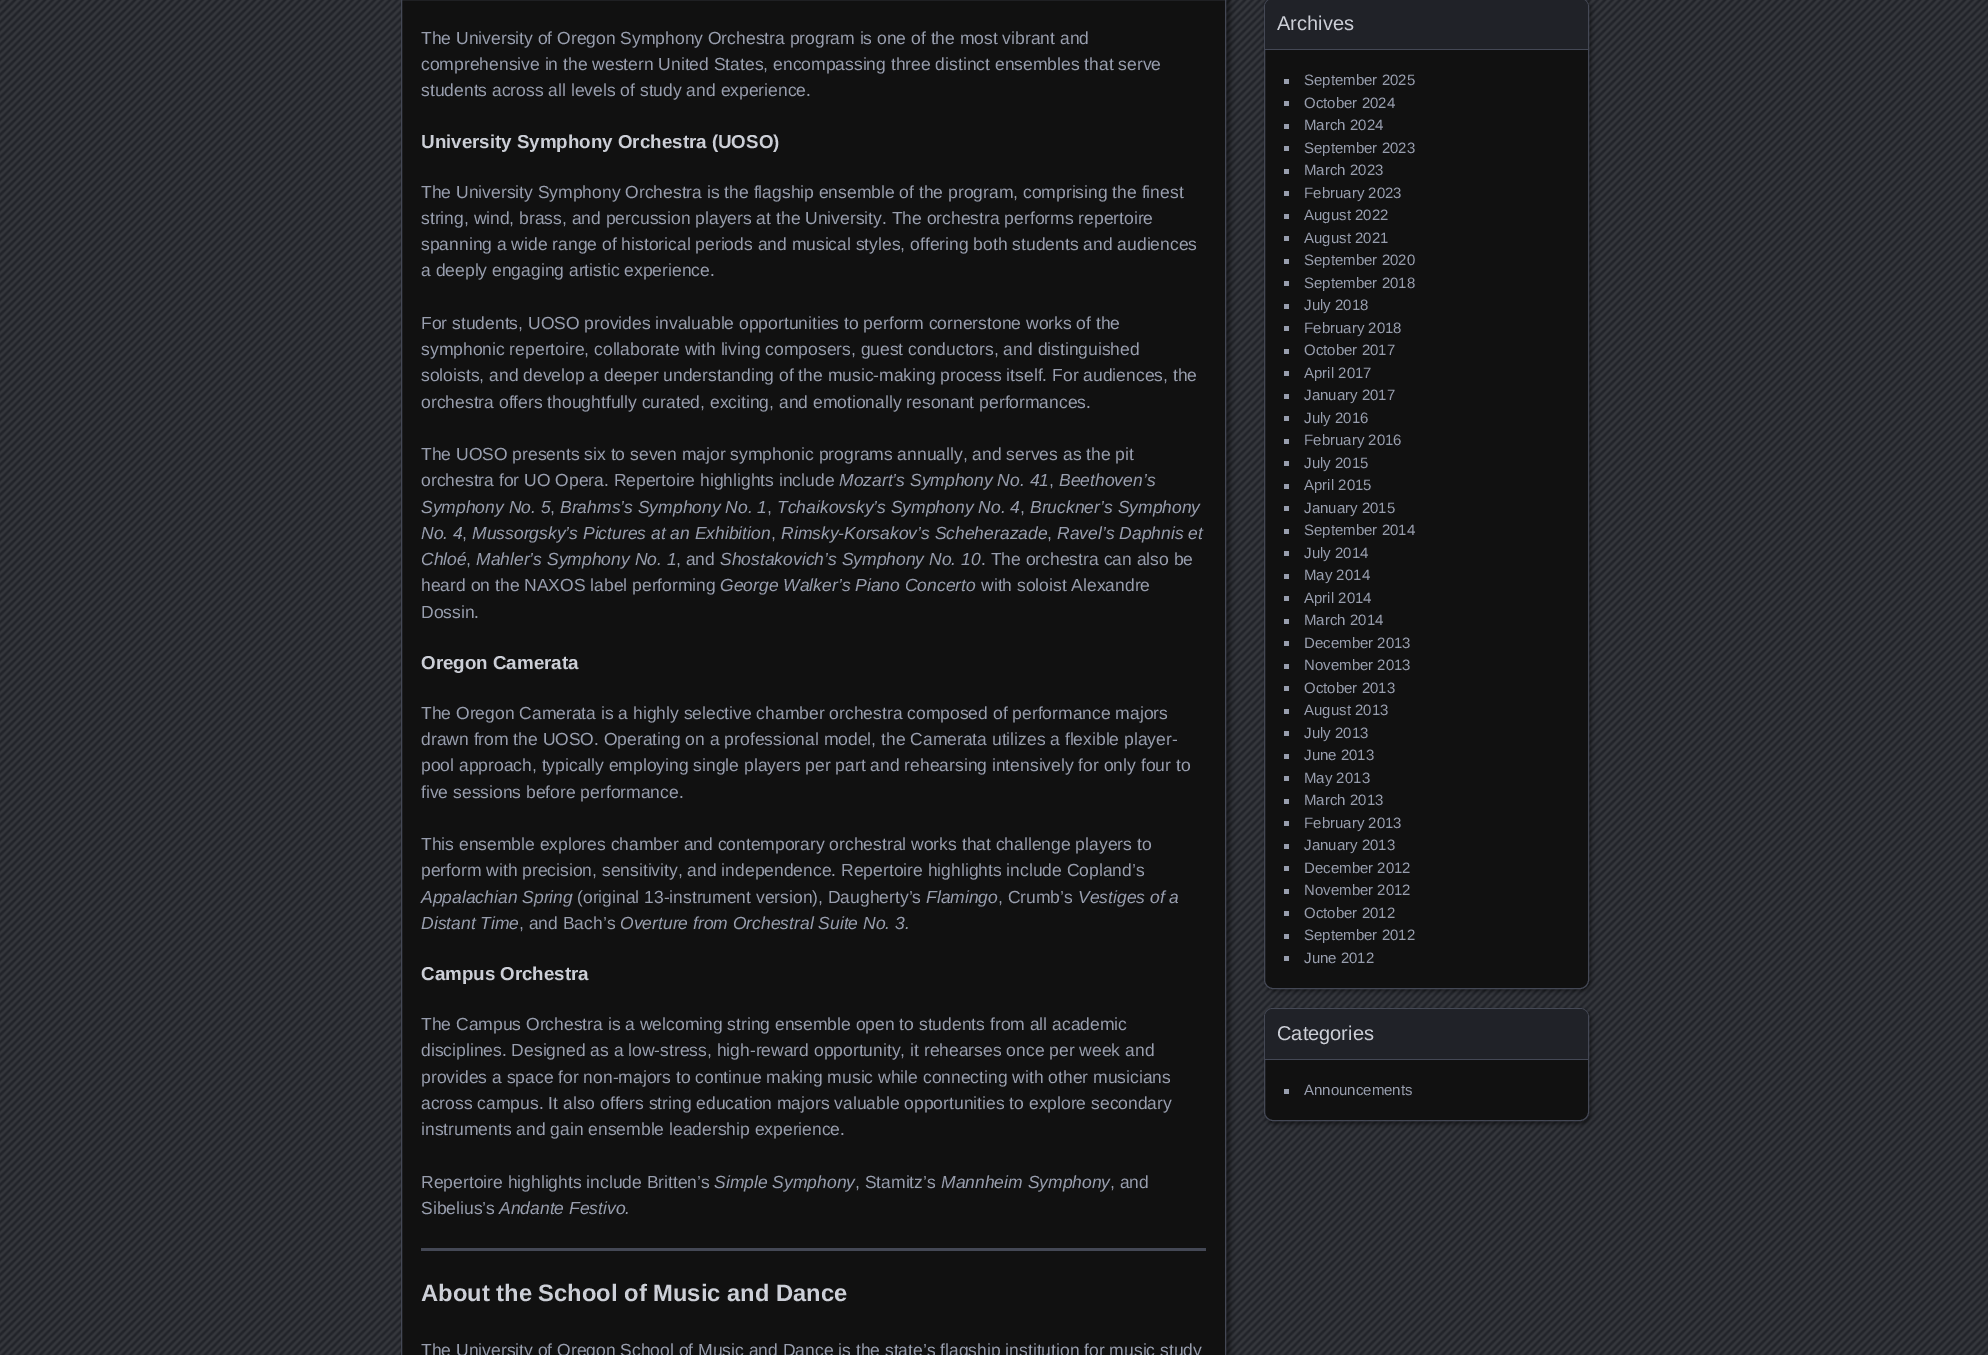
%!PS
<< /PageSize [1988 1355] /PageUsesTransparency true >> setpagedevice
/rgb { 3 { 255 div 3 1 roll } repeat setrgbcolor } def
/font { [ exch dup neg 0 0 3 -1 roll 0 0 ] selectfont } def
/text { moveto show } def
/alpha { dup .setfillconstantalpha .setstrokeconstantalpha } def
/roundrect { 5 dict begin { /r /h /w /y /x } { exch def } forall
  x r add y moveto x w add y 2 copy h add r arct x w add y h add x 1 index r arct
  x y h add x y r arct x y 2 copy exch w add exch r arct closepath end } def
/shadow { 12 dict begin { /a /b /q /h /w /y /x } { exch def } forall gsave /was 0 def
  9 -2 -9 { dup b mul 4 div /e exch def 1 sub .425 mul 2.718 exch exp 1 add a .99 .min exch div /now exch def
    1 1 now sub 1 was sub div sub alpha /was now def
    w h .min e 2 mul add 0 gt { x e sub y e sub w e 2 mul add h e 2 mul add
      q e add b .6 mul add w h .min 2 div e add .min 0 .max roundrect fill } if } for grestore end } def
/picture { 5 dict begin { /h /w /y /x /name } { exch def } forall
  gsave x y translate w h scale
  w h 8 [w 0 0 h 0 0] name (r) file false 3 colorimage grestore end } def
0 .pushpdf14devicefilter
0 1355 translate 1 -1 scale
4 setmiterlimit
32 34 40 rgb
0 0 1988 1355 rectfill
(img_01.rgb) 0 0 1988 1355 picture
0 0 0 rgb
405 -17 825 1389 9 2.5 0.45 shadow
17 17 17 rgb
401.5 -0.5 moveto 824 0 rlineto 0 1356 rlineto -824 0 rlineto closepath gsave fill grestore
68 72 85 rgb
stroke
421 1248 785 3 rectfill
0 0 0 rgb
1266 0 325 991 9 2 0.45 shadow
17 17 17 rgb
1264.5 -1.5 324 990 8.5 roundrect gsave fill grestore
68 72 85 rgb
stroke
32 34 40 rgb
1273 -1 moveto 307 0 rlineto 4.5 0 8 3.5 8 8 rcurveto 0 43 rlineto -323 0 rlineto 0 -43 rlineto 0 -4.5 3.5 -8 8 -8 rcurveto closepath fill
68 72 85 rgb
1265 49 323 1 rectfill
152 158 174 rgb
1284 79 5 5 rectfill
1284 101 5 5 rectfill
1284 124 5 5 rectfill
1284 146 5 5 rectfill
1284 169 5 5 rectfill
1284 191 5 5 rectfill
1284 214 5 5 rectfill
1284 236 5 5 rectfill
1284 259 5 5 rectfill
1284 281 5 5 rectfill
1284 304 5 5 rectfill
1284 326 5 5 rectfill
1284 349 5 5 rectfill
1284 371 5 5 rectfill
1284 394 5 5 rectfill
1284 416 5 5 rectfill
1284 439 5 5 rectfill
1284 461 5 5 rectfill
1284 484 5 5 rectfill
1284 506 5 5 rectfill
1284 529 5 5 rectfill
1284 551 5 5 rectfill
1284 574 5 5 rectfill
1284 596 5 5 rectfill
1284 619 5 5 rectfill
1284 641 5 5 rectfill
1284 664 5 5 rectfill
1284 686 5 5 rectfill
1284 709 5 5 rectfill
1284 731 5 5 rectfill
1284 754 5 5 rectfill
1284 776 5 5 rectfill
1284 799 5 5 rectfill
1284 821 5 5 rectfill
1284 844 5 5 rectfill
1284 866 5 5 rectfill
1284 889 5 5 rectfill
1284 911 5 5 rectfill
1284 934 5 5 rectfill
1284 956 5 5 rectfill
0 0 0 rgb
1266 1010 325 114 9 2 0.45 shadow
17 17 17 rgb
1264.5 1008.5 324 112 8.5 roundrect gsave fill grestore
68 72 85 rgb
stroke
32 34 40 rgb
1273 1009 moveto 307 0 rlineto 4.5 0 8 3.5 8 8 rcurveto 0 43 rlineto -323 0 rlineto 0 -43 rlineto 0 -4.5 3.5 -8 8 -8 rcurveto closepath fill
68 72 85 rgb
1265 1059 323 1 rectfill
152 158 174 rgb
1284 1089 5 5 rectfill
/LiberationSans-Regular 17.5 font
(The University of Oregon Symphony Orchestra program is one of the most vibrant and) 421 44 text
(comprehensive in the western United States, encompassing three distinct ensembles that serve) 421 70 text
(students across all levels of study and experience.) 421 96 text
/LiberationSans-Bold 18.75 font
204 207 215 rgb
(University Symphony Orchestra \(UOSO\)) 421 148 text
/LiberationSans-Regular 17.5 font
152 158 174 rgb
(The University Symphony Orchestra is the flagship ensemble of the program, comprising the finest) 421 198 text
(string, wind, brass, and percussion players at the University. The orchestra performs repertoire) 421 224 text
(spanning a wide range of historical periods and musical styles, offering both students and audiences) 421 250 text
(a deeply engaging artistic experience.) 421 276 text
(For students, UOSO provides invaluable opportunities to perform cornerstone works of the) 421 329 text
(symphonic repertoire, collaborate with living composers, guest conductors, and distinguished) 421 355 text
(soloists, and develop a deeper understanding of the music-making process itself. For audiences, the) 421 381 text
(orchestra offers thoughtfully curated, exciting, and emotionally resonant performances.) 421 408 text
(The UOSO presents six to seven major symphonic programs annually, and serves as the pit) 421 460 text
(orchestra for UO Opera. Repertoire highlights include) 421 486 text
/LiberationSans-Italic 17.5 font
(Mozart’s Symphony No. 41) 839 486 text
/LiberationSans-Regular 17.5 font
(,) 1049 486 text
/LiberationSans-Italic 17.5 font
(Beethoven’s) 1059 486 text
(Symphony No. 5) 421 513 text
/LiberationSans-Regular 17.5 font
(,) 550 513 text
/LiberationSans-Italic 17.5 font
(Brahms’s Symphony No. 1) 560 513 text
/LiberationSans-Regular 17.5 font
(,) 767 513 text
/LiberationSans-Italic 17.5 font
(Tchaikovsky’s Symphony No. 4) 777 513 text
/LiberationSans-Regular 17.5 font
(,) 1020 513 text
/LiberationSans-Italic 17.5 font
(Bruckner’s Symphony) 1030 513 text
(No. 4) 421 539 text
/LiberationSans-Regular 17.5 font
(,) 462 539 text
/LiberationSans-Italic 17.5 font
(Mussorgsky’s Pictures at an Exhibition) 472 539 text
/LiberationSans-Regular 17.5 font
(,) 771 539 text
/LiberationSans-Italic 17.5 font
(Rimsky-Korsakov’s Scheherazade) 781 539 text
/LiberationSans-Regular 17.5 font
(,) 1047 539 text
/LiberationSans-Italic 17.5 font
(Ravel’s Daphnis et) 1057 539 text
(Chloé) 421 565 text
/LiberationSans-Regular 17.5 font
(,) 466 565 text
/LiberationSans-Italic 17.5 font
(Mahler’s Symphony No. 1) 476 565 text
/LiberationSans-Regular 17.5 font
(, and) 676 565 text
/LiberationSans-Italic 17.5 font
(Shostakovich’s Symphony No. 10) 720 565 text
/LiberationSans-Regular 17.5 font
(. The orchestra can also be) 981 565 text
(heard on the NAXOS label performing) 421 591 text
/LiberationSans-Italic 17.5 font
(George Walker’s Piano Concerto) 720 591 text
/LiberationSans-Regular 17.5 font
(with soloist Alexandre) 981 591 text
(Dossin.) 421 618 text
/LiberationSans-Bold 18.75 font
204 207 215 rgb
(Oregon Camerata) 421 669 text
/LiberationSans-Regular 17.5 font
152 158 174 rgb
(The Oregon Camerata is a highly selective chamber orchestra composed of performance majors) 421 719 text
(drawn from the UOSO. Operating on a professional model, the Camerata utilizes a flexible player-) 421 745 text
(pool approach, typically employing single players per part and rehearsing intensively for only four to) 421 771 text
(five sessions before performance.) 421 798 text
(This ensemble explores chamber and contemporary orchestral works that challenge players to) 421 850 text
(perform with precision, sensitivity, and independence. Repertoire highlights include Copland’s) 421 876 text
/LiberationSans-Italic 17.5 font
(Appalachian Spring) 421 903 text
/LiberationSans-Regular 17.5 font
(\(original 13-instrument version\), Daugherty’s) 577 903 text
/LiberationSans-Italic 17.5 font
(Flamingo) 926 903 text
/LiberationSans-Regular 17.5 font
(, Crumb’s) 998 903 text
/LiberationSans-Italic 17.5 font
(Vestiges of a) 1078 903 text
(Distant Time) 421 929 text
/LiberationSans-Regular 17.5 font
(, and Bach’s) 519 929 text
/LiberationSans-Italic 17.5 font
(Overture from Orchestral Suite No. 3.) 620 929 text
/LiberationSans-Bold 18.75 font
204 207 215 rgb
(Campus Orchestra) 421 980 text
/LiberationSans-Regular 17.5 font
152 158 174 rgb
(The Campus Orchestra is a welcoming string ensemble open to students from all academic) 421 1030 text
(disciplines. Designed as a low-stress, high-reward opportunity, it rehearses once per week and) 421 1056 text
(provides a space for non-majors to continue making music while connecting with other musicians) 421 1083 text
(across campus. It also offers string education majors valuable opportunities to explore secondary) 421 1109 text
(instruments and gain ensemble leadership experience.) 421 1135 text
(Repertoire highlights include Britten’s) 421 1188 text
/LiberationSans-Italic 17.5 font
(Simple Symphony) 714 1188 text
/LiberationSans-Regular 17.5 font
(, Stamitz’s) 855 1188 text
/LiberationSans-Italic 17.5 font
(Mannheim Symphony) 941 1188 text
/LiberationSans-Regular 17.5 font
(, and) 1110 1188 text
(Sibelius’s) 421 1214 text
/LiberationSans-Italic 17.5 font
(Andante Festivo.) 499 1214 text
/LiberationSans-Bold 23.75 font
204 207 215 rgb
(About the School of Music and Dance) 421 1301 text
/LiberationSans-Regular 17.5 font
152 158 174 rgb
(The University of Oregon School of Music and Dance is the state’s flagship institution for music study) 421 1356 text
/LiberationSans-Regular 20 font
204 207 215 rgb
(Archives) 1277 30 text
/LiberationSans-Regular 15 font
152 158 174 rgb
(September 2025) 1304 85 text
(October 2024) 1304 108 text
(March 2024) 1304 130 text
(September 2023) 1304 153 text
(March 2023) 1304 175 text
(February 2023) 1304 198 text
(August 2022) 1304 220 text
(August 2021) 1304 243 text
(September 2020) 1304 265 text
(September 2018) 1304 288 text
(July 2018) 1304 310 text
(February 2018) 1304 333 text
(October 2017) 1304 355 text
(April 2017) 1304 378 text
(January 2017) 1304 400 text
(July 2016) 1304 423 text
(February 2016) 1304 445 text
(July 2015) 1304 468 text
(April 2015) 1304 490 text
(January 2015) 1304 513 text
(September 2014) 1304 535 text
(July 2014) 1304 558 text
(May 2014) 1304 580 text
(April 2014) 1304 603 text
(March 2014) 1304 625 text
(December 2013) 1304 648 text
(November 2013) 1304 670 text
(October 2013) 1304 693 text
(August 2013) 1304 715 text
(July 2013) 1304 738 text
(June 2013) 1304 760 text
(May 2013) 1304 783 text
(March 2013) 1304 805 text
(February 2013) 1304 828 text
(January 2013) 1304 850 text
(December 2012) 1304 873 text
(November 2012) 1304 895 text
(October 2012) 1304 918 text
(September 2012) 1304 940 text
(June 2012) 1304 963 text
/LiberationSans-Regular 20 font
204 207 215 rgb
(Categories) 1277 1040 text
/LiberationSans-Regular 15 font
152 158 174 rgb
(Announcements) 1304 1095 text
.poppdf14devicefilter showpage
